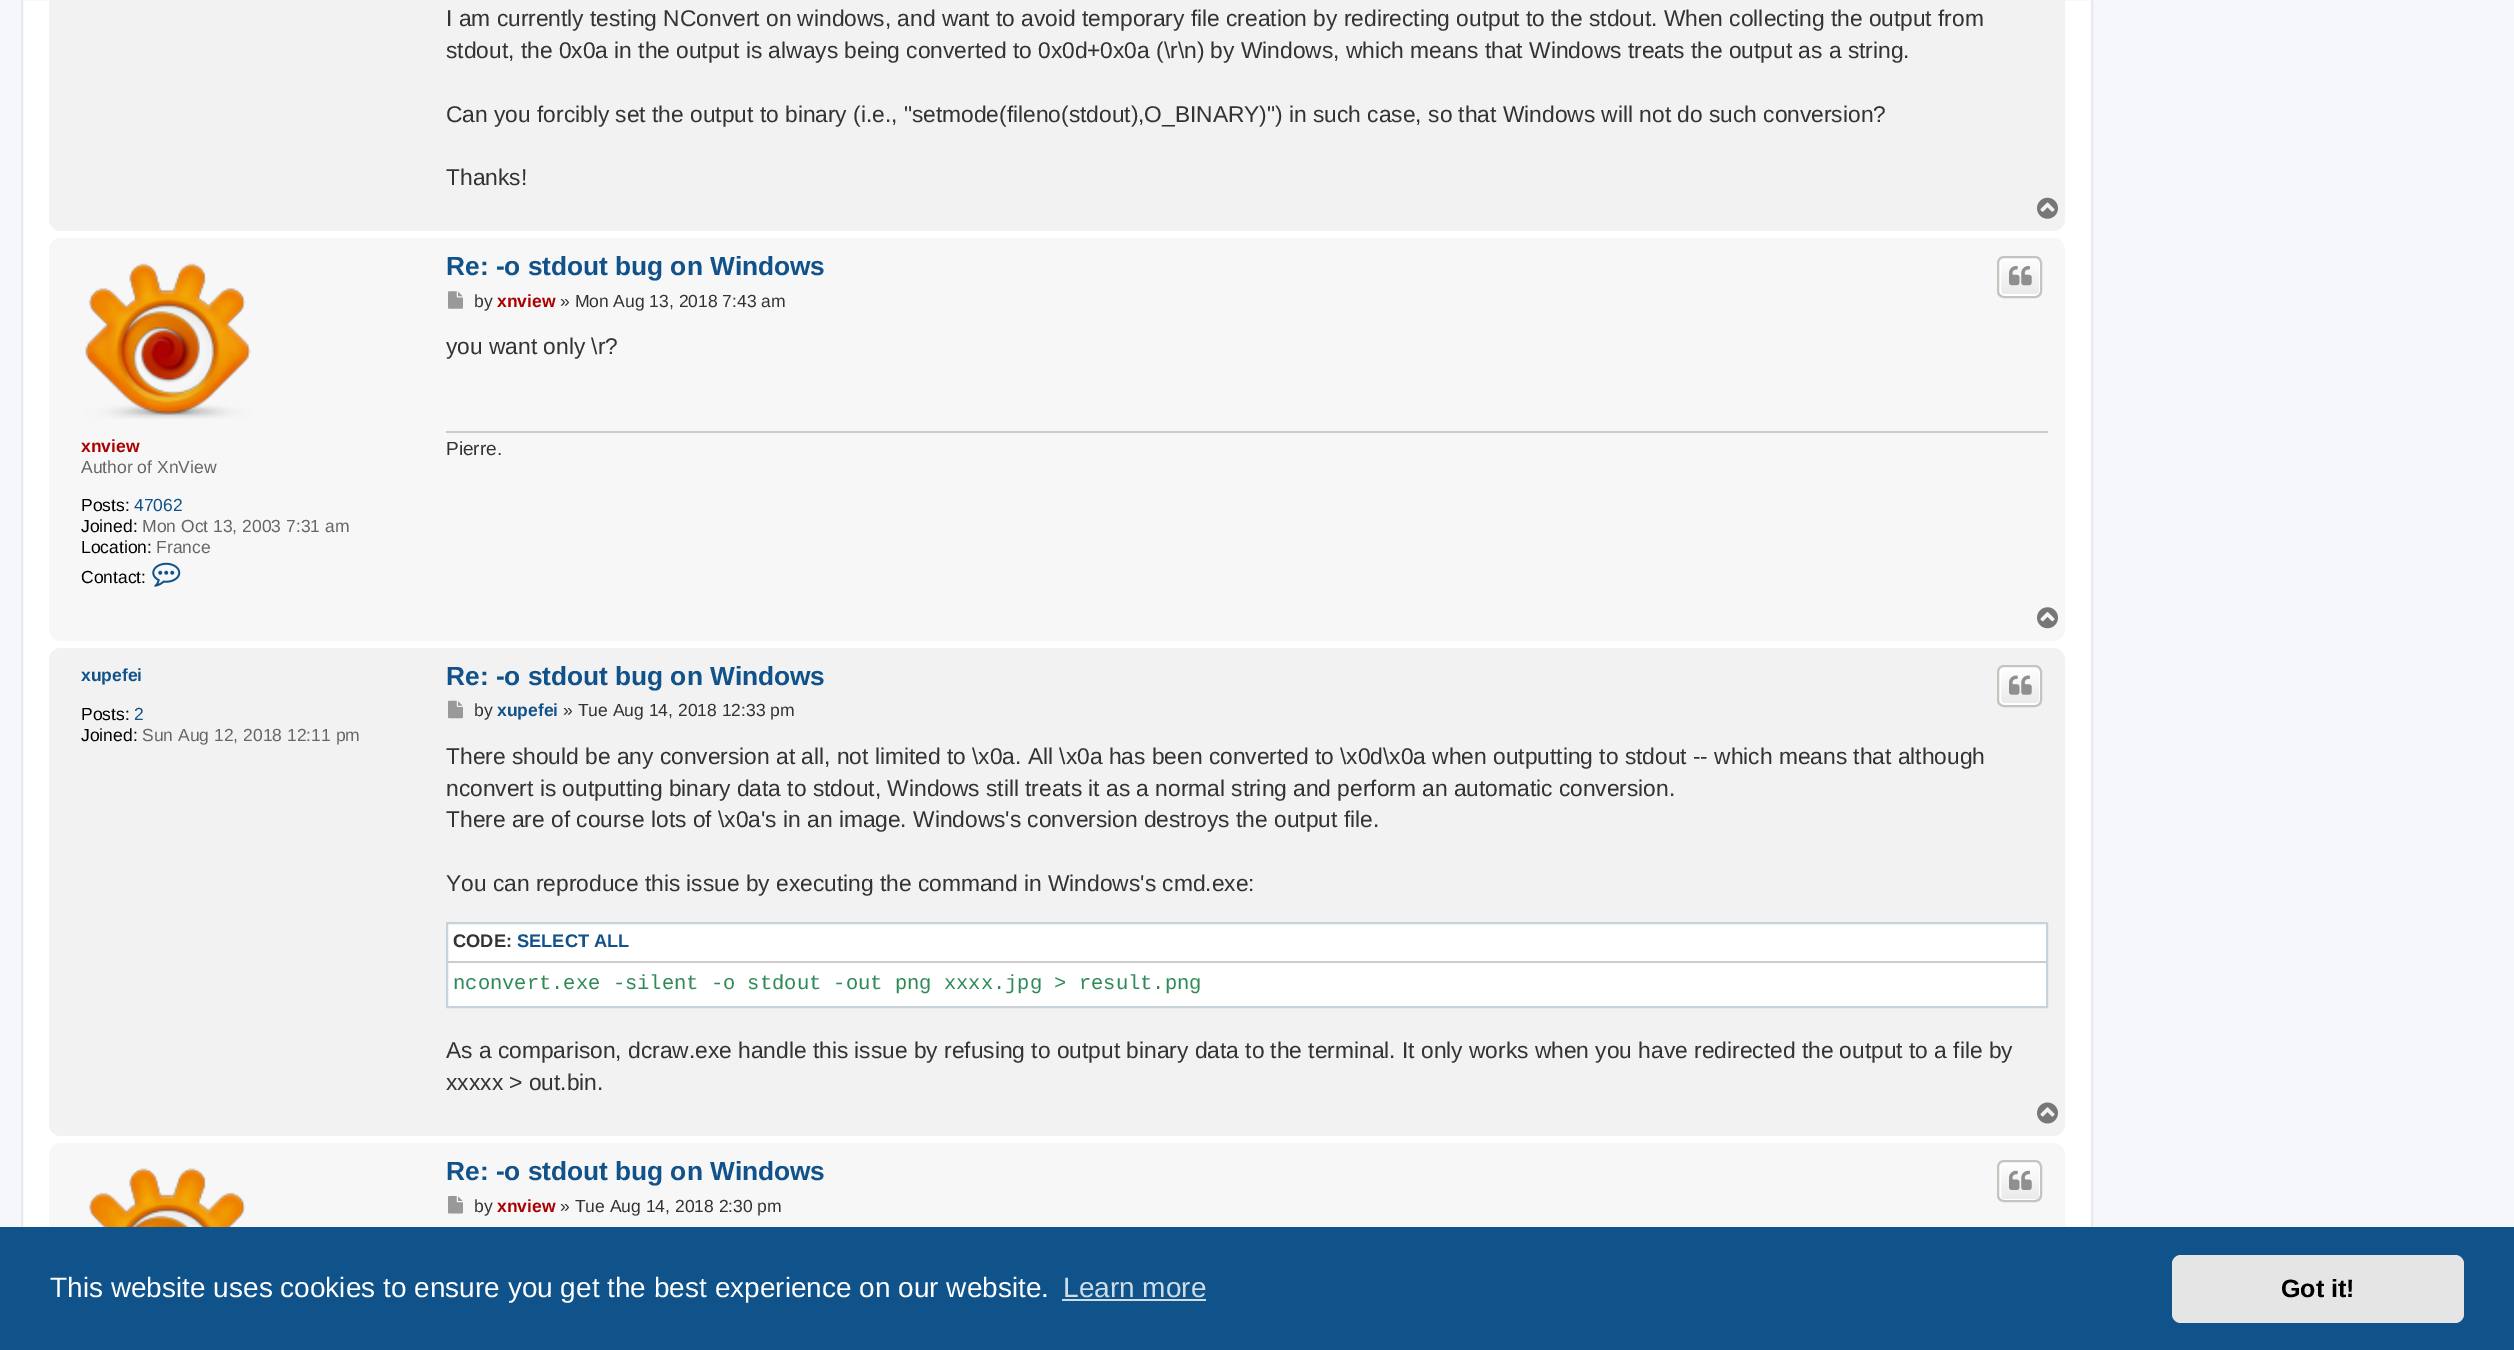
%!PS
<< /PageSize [2514 1350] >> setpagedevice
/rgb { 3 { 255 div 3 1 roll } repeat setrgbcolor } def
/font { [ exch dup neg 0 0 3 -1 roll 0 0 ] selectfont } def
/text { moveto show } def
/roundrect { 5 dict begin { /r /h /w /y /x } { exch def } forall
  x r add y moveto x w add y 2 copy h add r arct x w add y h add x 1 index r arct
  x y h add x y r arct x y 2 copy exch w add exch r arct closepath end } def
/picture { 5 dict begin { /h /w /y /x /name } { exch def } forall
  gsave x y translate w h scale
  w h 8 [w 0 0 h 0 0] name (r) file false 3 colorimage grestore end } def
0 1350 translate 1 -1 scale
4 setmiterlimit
245 247 250 rgb
0 0 2514 1350 rectfill
255 255 255 rgb
23 0 2068 1227 rectfill
230 233 237 rgb
2 setlinewidth
22 -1 2070 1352 rectstroke
242 242 242 rgb
49 -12 2016 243 12 roundrect fill
(img_01.rgb) 2037 197 21 22 picture
247 247 247 rgb
49 238 2016 403 12 roundrect fill
gsave
1997 256 45 42 7 roundrect clip newpath
gsave 1997 257 moveto 45 0 rlineto 0 39 rlineto -45 0 rlineto closepath clip newpath
<< /ShadingType 2 /ColorSpace /DeviceRGB /Coords [2020 257 2020 296] /Extend [true true] /Function << /FunctionType 2 /Domain [0 1] /C0 [1 1 1] /C1 [0.914 0.914 0.914] /N 1 >> >> shfill grestore
grestore
255 255 255 rgb
2000 258 40 37 4 roundrect stroke
199 195 191 rgb
1998 257 43 40 6 roundrect stroke
(img_02.rgb) 2009 266 23 20 picture
(img_03.rgb) 448 291 15 18 picture
204 204 204 rgb
446 431 1602 2 rectfill
(img_04.rgb) 85 263 166 156 picture
(img_05.rgb) 152 562 29 25 picture
(img_06.rgb) 2037 607 21 22 picture
242 242 242 rgb
49 648 2016 488 12 roundrect fill
gsave
1997 665 45 42 7 roundrect clip newpath
gsave 1997 667 moveto 45 0 rlineto 0 38 rlineto -45 0 rlineto closepath clip newpath
<< /ShadingType 2 /ColorSpace /DeviceRGB /Coords [2020 667 2020 705] /Extend [true true] /Function << /FunctionType 2 /Domain [0 1] /C0 [1 1 1] /C1 [0.914 0.914 0.914] /N 1 >> >> shfill grestore
grestore
255 255 255 rgb
2000 668 40 36 4 roundrect stroke
199 195 191 rgb
1998 666 43 40 6 roundrect stroke
(img_07.rgb) 2009 675 23 20 picture
(img_08.rgb) 448 700 15 19 picture
255 255 255 rgb
447 923 moveto 1600 0 rlineto 0 84 rlineto -1600 0 rlineto closepath gsave fill grestore
201 210 216 rgb
stroke
204 204 204 rgb
448 961 1598 2 rectfill
(img_09.rgb) 2037 1102 21 22 picture
247 247 247 rgb
49 1143 2016 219 12 roundrect fill
(img_10.rgb) 89 1168 157 59 picture
gsave
1997 1160 45 42 7 roundrect clip newpath
gsave 1997 1162 moveto 45 0 rlineto 0 39 rlineto -45 0 rlineto closepath clip newpath
<< /ShadingType 2 /ColorSpace /DeviceRGB /Coords [2020 1162 2020 1201] /Extend [true true] /Function << /FunctionType 2 /Domain [0 1] /C0 [1 1 1] /C1 [0.914 0.914 0.914] /N 1 >> >> shfill grestore
grestore
255 255 255 rgb
2000 1163 40 37 4 roundrect stroke
199 195 191 rgb
1998 1161 43 40 6 roundrect stroke
(img_11.rgb) 2009 1170 23 20 picture
(img_12.rgb) 448 1196 15 18 picture
15 83 138 rgb
0 1227 2514 123 rectfill
207 221 232 rgb
1062 1299 144 2 rectfill
229 229 229 rgb
2172 1255 292 68 9 roundrect fill
/LiberationSans-Regular 22.75 font
51 51 51 rgb
(I am currently testing NConvert on windows, and want to avoid temporary file creation by redirecting output to the stdout. When collecting the output from) 446 26 text
(stdout, the 0x0a in the output is always being converted to 0x0d+0x0a \(\\r\\n\) by Windows, which means that Windows treats the output as a string.) 446 58 text
(Can you forcibly set the output to binary \(i.e., "setmode\(fileno\(stdout\),O_BINARY\)"\) in such case, so that Windows will not do such conversion?) 446 122 text
(Thanks!) 446 185 text
/LiberationSans-Bold 26.25 font
16 82 137 rgb
(Re: -o stdout bug on Windows) 446 275 text
/LiberationSans-Regular 17.5 font
51 51 51 rgb
(by) 474 307 text
/LiberationSans-Bold 17.5 font
170 0 0 rgb
(xnview) 497 307 text
/LiberationSans-Regular 17.5 font
51 51 51 rgb
(» Mon Aug 13, 2018 7:43 am) 560 307 text
/LiberationSans-Regular 22.75 font
(you want only \\r?) 446 354 text
/LiberationSans-Regular 19 font
(Pierre.) 446 455 text
/LiberationSans-Bold 17.5 font
170 0 0 rgb
(xnview) 81 452 text
/LiberationSans-Regular 17.5 font
102 102 102 rgb
(Author of XnView) 81 473 text
0 0 0 rgb
(Posts:) 81 511 text
16 82 137 rgb
(47062) 134 511 text
0 0 0 rgb
(Joined:) 81 532 text
102 102 102 rgb
(Mon Oct 13, 2003 7:31 am) 142 532 text
0 0 0 rgb
(Location:) 81 553 text
102 102 102 rgb
(France) 156 553 text
0 0 0 rgb
(Contact:) 81 583 text
/LiberationSans-Bold 17.5 font
16 82 137 rgb
(xupefei) 81 681 text
/LiberationSans-Regular 17.5 font
0 0 0 rgb
(Posts:) 81 720 text
16 82 137 rgb
(2) 134 720 text
0 0 0 rgb
(Joined:) 81 741 text
102 102 102 rgb
(Sun Aug 12, 2018 12:11 pm) 142 741 text
/LiberationSans-Bold 26.25 font
16 82 137 rgb
(Re: -o stdout bug on Windows) 446 685 text
/LiberationSans-Regular 17.5 font
51 51 51 rgb
(by) 474 716 text
/LiberationSans-Bold 17.5 font
16 82 137 rgb
(xupefei) 497 716 text
/LiberationSans-Regular 17.5 font
51 51 51 rgb
(» Tue Aug 14, 2018 12:33 pm) 563 716 text
/LiberationSans-Regular 22.75 font
(There should be any conversion at all, not limited to \\x0a. All \\x0a has been converted to \\x0d\\x0a when outputting to stdout -- which means that although) 446 764 text
(nconvert is outputting binary data to stdout, Windows still treats it as a normal string and perform an automatic conversion.) 446 796 text
(There are of course lots of \\x0a's in an image. Windows's conversion destroys the output file.) 446 827 text
(You can reproduce this issue by executing the command in Windows's cmd.exe:) 446 891 text
/LiberationSans-Bold 18.25 font
(CODE:) 453 947 text
16 82 137 rgb
(SELECT ALL) 517 947 text
/LiberationMono-Regular 20.45 font
46 139 87 rgb
(nconvert.exe -silent -o stdout -out png xxxx.jpg > result.png) 453 989 text
/LiberationSans-Regular 22.75 font
51 51 51 rgb
(As a comparison, dcraw.exe handle this issue by refusing to output binary data to the terminal. It only works when you have redirected the output to a file by) 446 1058 text
(xxxxx > out.bin.) 446 1090 text
/LiberationSans-Bold 26.25 font
16 82 137 rgb
(Re: -o stdout bug on Windows) 446 1180 text
/LiberationSans-Regular 17.5 font
51 51 51 rgb
(by) 474 1212 text
/LiberationSans-Bold 17.5 font
170 0 0 rgb
(xnview) 497 1212 text
/LiberationSans-Regular 17.5 font
51 51 51 rgb
(» Tue Aug 14, 2018 2:30 pm) 560 1212 text
/LiberationSans-Regular 28 font
255 255 255 rgb
(This website uses cookies to ensure you get the best experience on our website.) 50 1297 text
207 221 232 rgb
(Learn more) 1063 1297 text
/LiberationSans-Bold 25 font
0 0 0 rgb
(Got it!) 2281 1297 text
showpage
